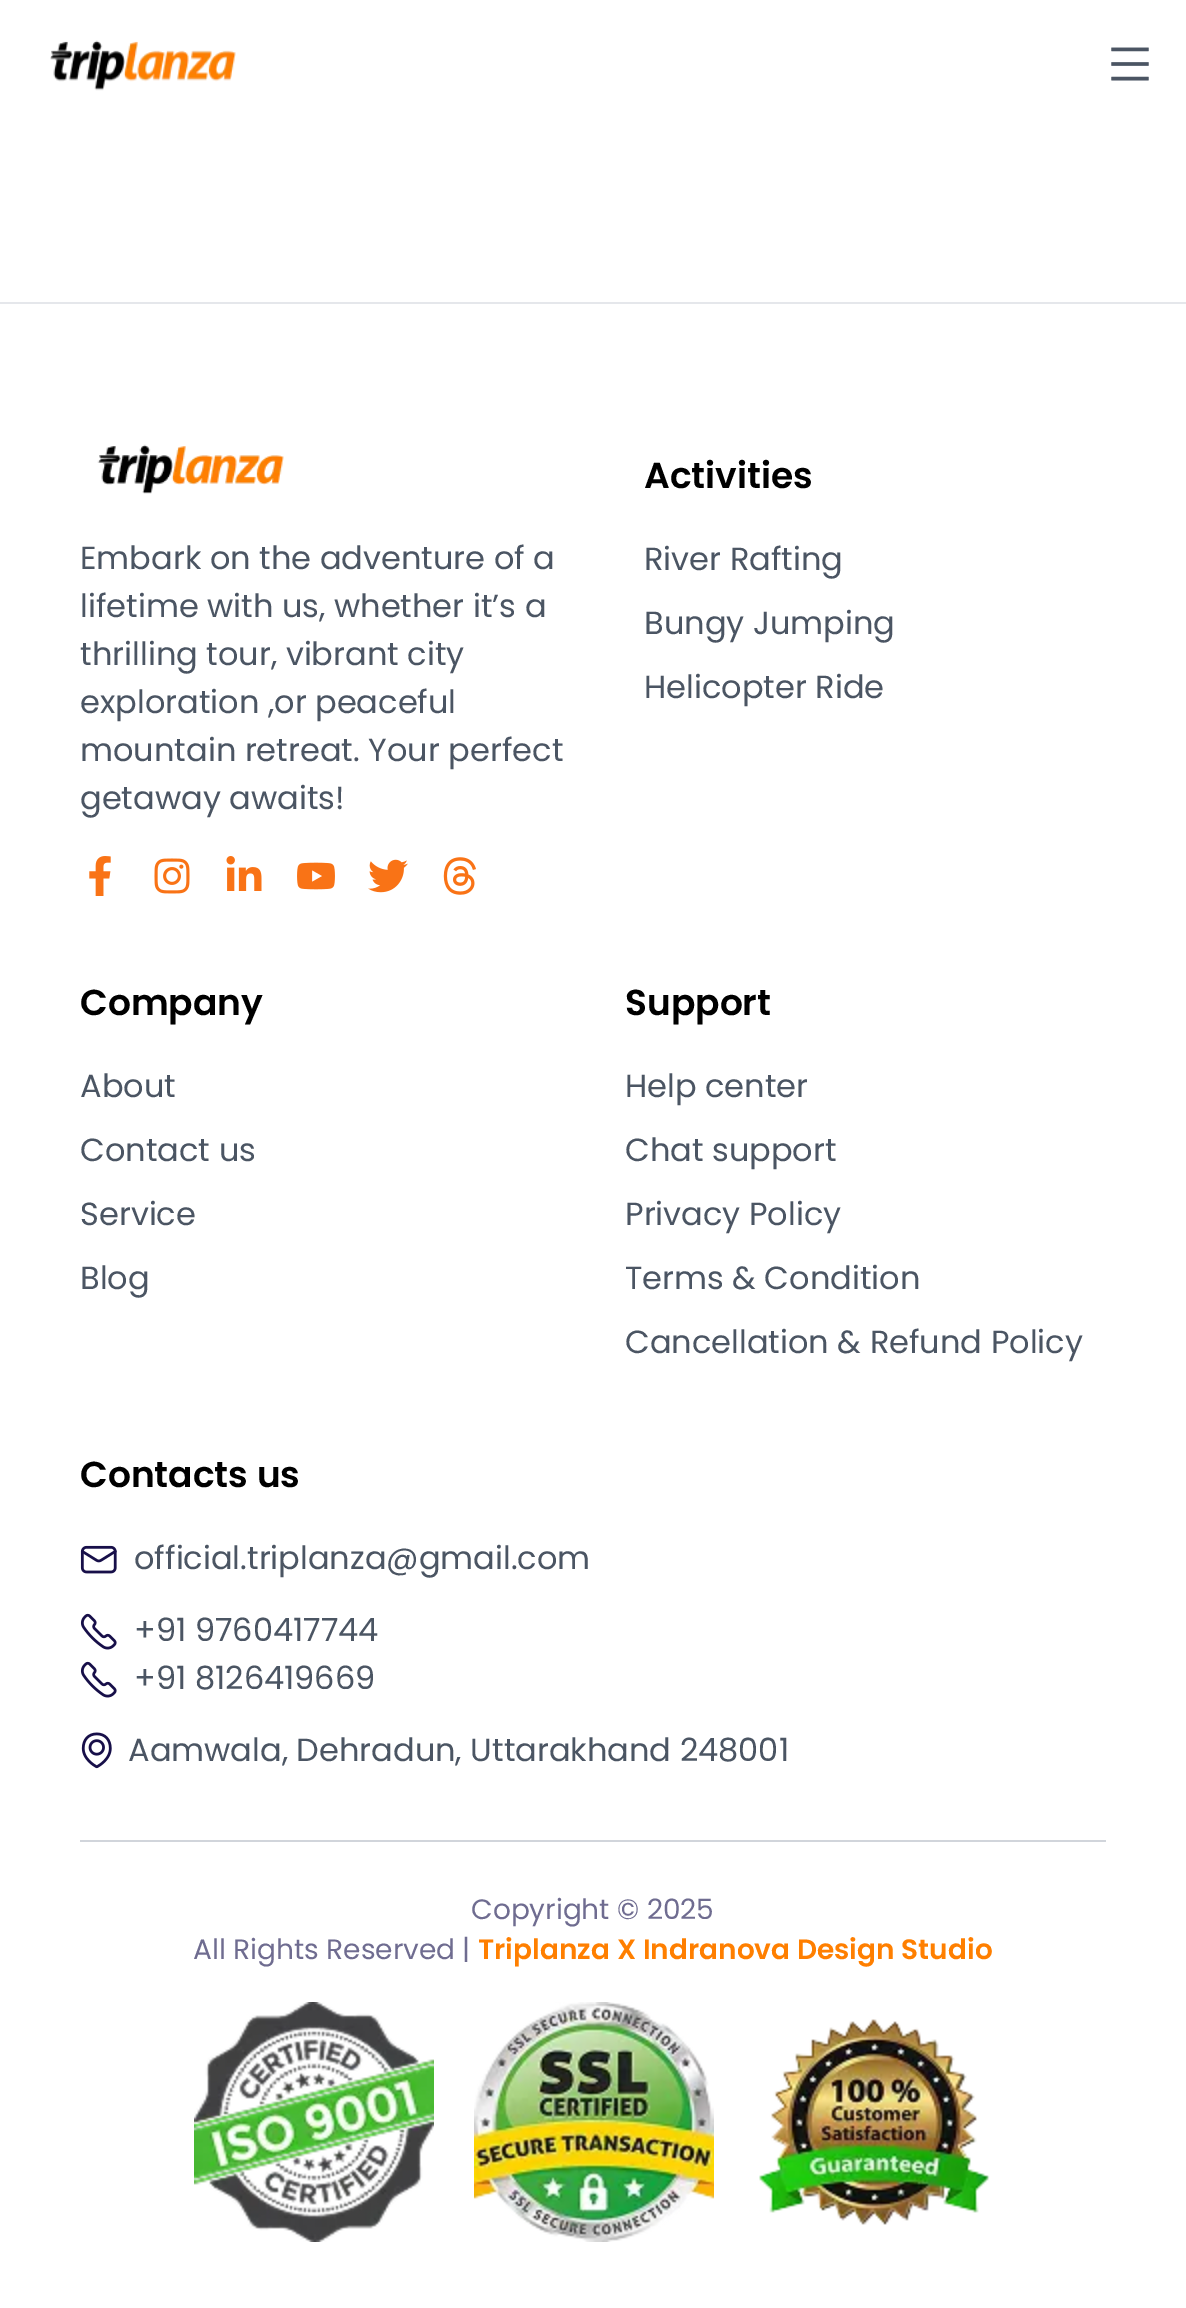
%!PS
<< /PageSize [1186 2308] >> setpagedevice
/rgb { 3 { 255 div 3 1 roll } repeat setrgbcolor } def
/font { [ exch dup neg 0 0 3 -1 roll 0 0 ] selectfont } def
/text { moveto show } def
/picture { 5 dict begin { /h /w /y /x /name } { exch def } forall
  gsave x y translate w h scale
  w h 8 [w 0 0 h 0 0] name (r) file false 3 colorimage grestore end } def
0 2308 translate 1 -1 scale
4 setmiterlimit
255 255 255 rgb
0 0 1186 2308 rectfill
(img_01.rgb) 50 40 186 51 picture
(img_02.rgb) 1111 47 38 34 picture
229 231 235 rgb
0 302 1186 2 rectfill
(img_03.rgb) 97 444 187 50 picture
(img_04.rgb) 89 856 22 40 picture
(img_05.rgb) 154 858 36 36 picture
(img_06.rgb) 226 856 36 35 picture
(img_07.rgb) 297 862 38 28 picture
(img_08.rgb) 368 859 40 34 picture
(img_09.rgb) 443 857 33 38 picture
(img_10.rgb) 80 1545 37 29 picture
(img_11.rgb) 80 1613 37 37 picture
(img_11.rgb) 80 1661 37 37 picture
(img_12.rgb) 81 1732 31 37 picture
209 213 219 rgb
80 1840 1026 2 rectfill
(img_13.rgb) 194 2002 240 240 picture
(img_14.rgb) 474 2002 240 240 picture
(img_15.rgb) 759 2019 231 206 picture
/Poppins-Regular 32 font
75 85 99 rgb
(Embark on the adventure of a) 80 569 text
(lifetime with us, whether it’s a) 80 617 text
(thrilling tour, vibrant city) 80 665 text
(exploration ,or peaceful) 80 713 text
(mountain retreat. Your perfect) 80 761 text
(getaway awaits!) 80 809 text
/Poppins-SemiBold 36 font
0 0 0 rgb
(Activities) 644 488 text
/Poppins-Regular 32 font
75 85 99 rgb
(River Rafting) 644 570 text
(Bungy Jumping) 644 634 text
(Helicopter Ride) 644 698 text
/Poppins-SemiBold 36 font
0 0 0 rgb
(Company) 80 1015 text
/Poppins-Regular 32 font
75 85 99 rgb
(About) 80 1097 text
(Contact us) 80 1161 text
(Service) 80 1225 text
(Blog) 80 1289 text
/Poppins-SemiBold 36 font
0 0 0 rgb
(Support) 625 1015 text
/Poppins-Regular 32 font
75 85 99 rgb
(Help center) 625 1097 text
(Chat support) 625 1161 text
(Privacy Policy) 625 1225 text
(Terms & Condition) 625 1289 text
(Cancellation & Refund Policy) 625 1353 text
/Poppins-SemiBold 36 font
0 0 0 rgb
(Contacts us) 80 1487 text
/Poppins-Regular 32 font
75 85 99 rgb
(official.triplanza@gmail.com) 134 1569 text
(+91 9760417744) 134 1641 text
(+91 8126419669) 134 1689 text
(Aamwala, Dehradun, Uttarakhand 248001) 128 1761 text
/Poppins-Regular 28 font
111 108 144 rgb
(Copyright © 2025) 471 1919 text
(All Rights Reserved |) 193 1959 text
/Poppins-SemiBold 28 font
255 127 0 rgb
(Triplanza X Indranova Design Studio) 478 1959 text
showpage
